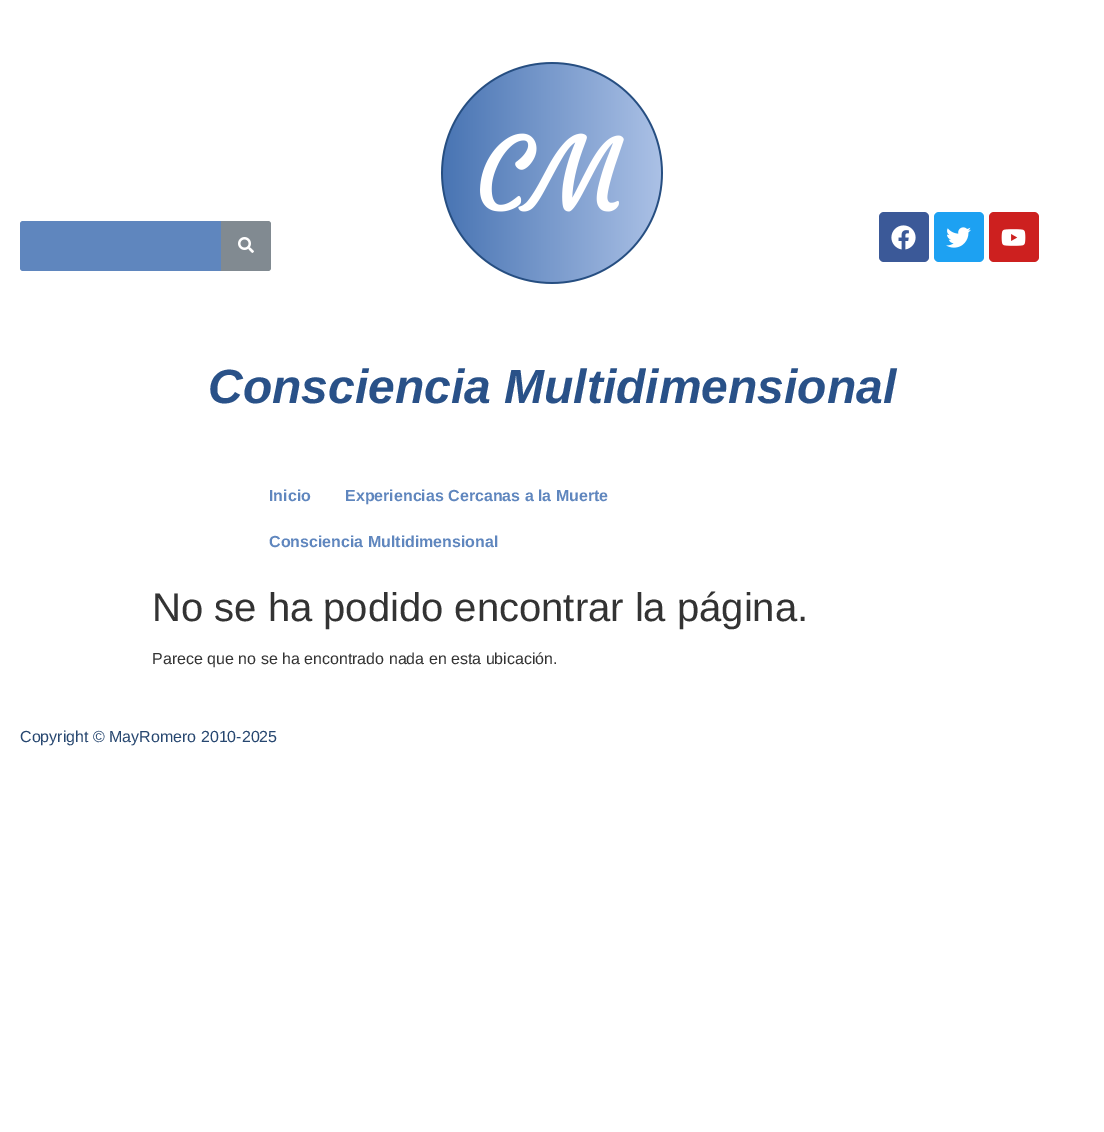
%!PS
<< /PageSize [1104 1132] >> setpagedevice
/rgb { 3 { 255 div 3 1 roll } repeat setrgbcolor } def
/font { [ exch dup neg 0 0 3 -1 roll 0 0 ] selectfont } def
/text { moveto show } def
/roundrect { 5 dict begin { /r /h /w /y /x } { exch def } forall
  x r add y moveto x w add y 2 copy h add r arct x w add y h add x 1 index r arct
  x y h add x y r arct x y 2 copy exch w add exch r arct closepath end } def
/picture { 5 dict begin { /h /w /y /x /name } { exch def } forall
  gsave x y translate w h scale
  w h 8 [w 0 0 h 0 0] name (r) file false 3 colorimage grestore end } def
0 1132 translate 1 -1 scale
4 setmiterlimit
255 255 255 rgb
0 0 1104 1132 rectfill
95 134 190 rgb
23 221 moveto 198 0 rlineto 0 50 rlineto -198 0 rlineto -1.5 0 -3 -1.5 -3 -3 rcurveto 0 -44 rlineto 0 -1.5 1.5 -3 3 -3 rcurveto closepath fill
129 138 145 rgb
221 221 moveto 47 0 rlineto 1.5 0 3 1.5 3 3 rcurveto 0 44 rlineto 0 1.5 -1.5 3 -3 3 rcurveto -47 0 rlineto closepath fill
(img_01.rgb) 238 237 16 16 picture
(img_02.rgb) 441 62 222 222 picture
59 89 152 rgb
879 212 50 50 5 roundrect fill
(img_03.rgb) 891 225 25 25 picture
29 161 242 rgb
934 212 50 50 5 roundrect fill
(img_04.rgb) 946 227 25 21 picture
205 32 31 rgb
989 212 50 50 5 roundrect fill
(img_05.rgb) 1001 229 25 17 picture
/LiberationSans-BoldItalic 48 font
41 81 136 rgb
(Consciencia Multidimensional) 208 403 text
/LiberationSans-Bold 16 font
95 134 190 rgb
(Inicio) 269 501 text
(Experiencias Cercanas a la Muerte) 345 501 text
(Consciencia Multidimensional) 269 547 text
/LiberationSans-Regular 40 font
51 51 51 rgb
(No se ha podido encontrar la página.) 152 621 text
/LiberationSans-Regular 16 font
(Parece que no se ha encontrado nada en esta ubicación.) 152 664 text
39 71 112 rgb
(Copyright © MayRomero 2010-2025) 20 742 text
showpage
